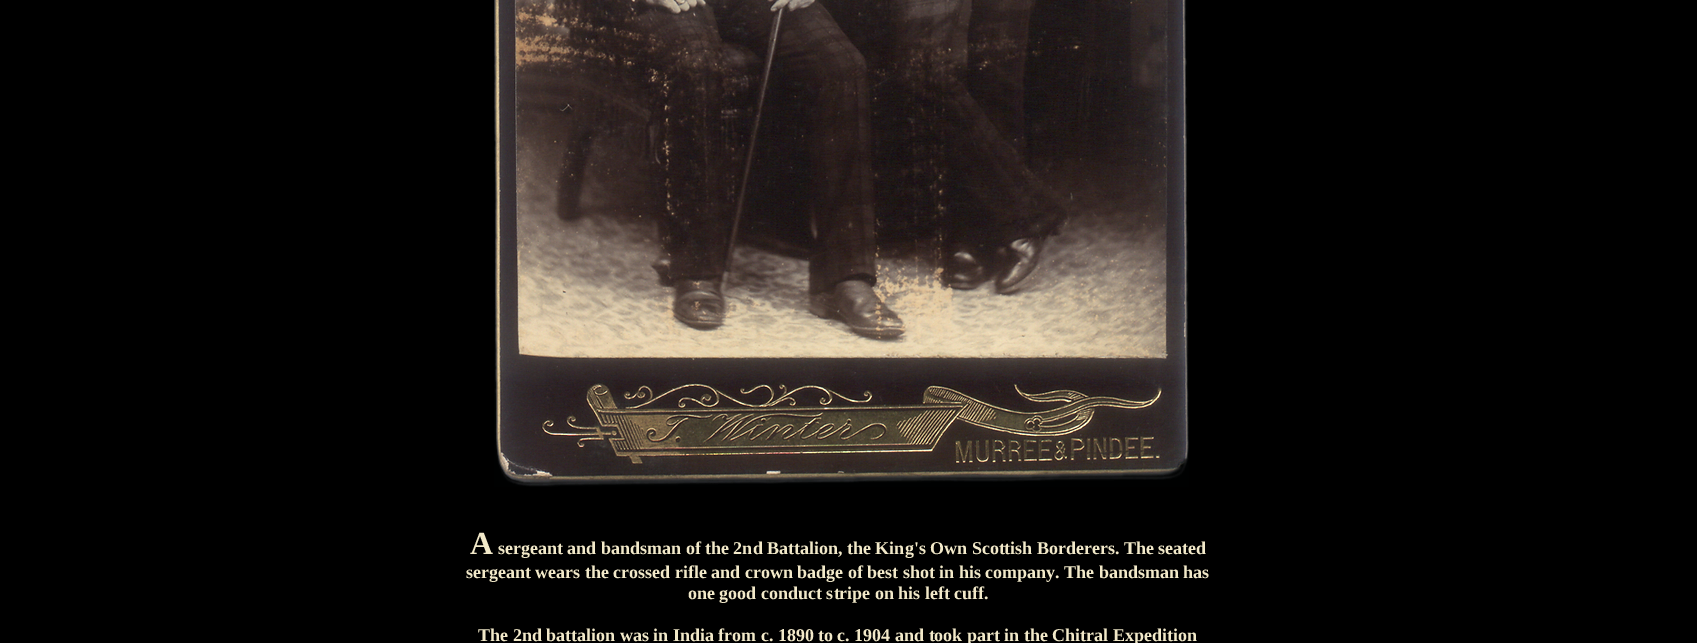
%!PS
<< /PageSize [1697 643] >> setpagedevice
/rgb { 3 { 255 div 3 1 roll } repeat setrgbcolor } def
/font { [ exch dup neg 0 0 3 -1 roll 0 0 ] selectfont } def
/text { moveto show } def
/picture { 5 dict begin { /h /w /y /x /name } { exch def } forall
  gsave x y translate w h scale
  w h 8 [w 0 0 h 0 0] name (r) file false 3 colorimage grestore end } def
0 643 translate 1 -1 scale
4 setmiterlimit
0 0 0 rgb
0 0 1697 643 rectfill
(img_01.rgb) 494 0 695 487 picture
/LiberationSerif-Bold 32 font
242 233 201 rgb
(A) 470 554 text
/LiberationSerif-Bold 18 font
(sergeant and bandsman of the 2nd Battalion, the King's Own Scottish Borderers. The seated) 498 554 text
(sergeant wears the crossed rifle and crown badge of best shot in his company. The bandsman has) 466 578 text
(one good conduct stripe on his left cuff.) 688 599 text
(The 2nd battalion was in India from c. 1890 to c. 1904 and took part in the Chitral Expedition) 478 641 text
showpage
